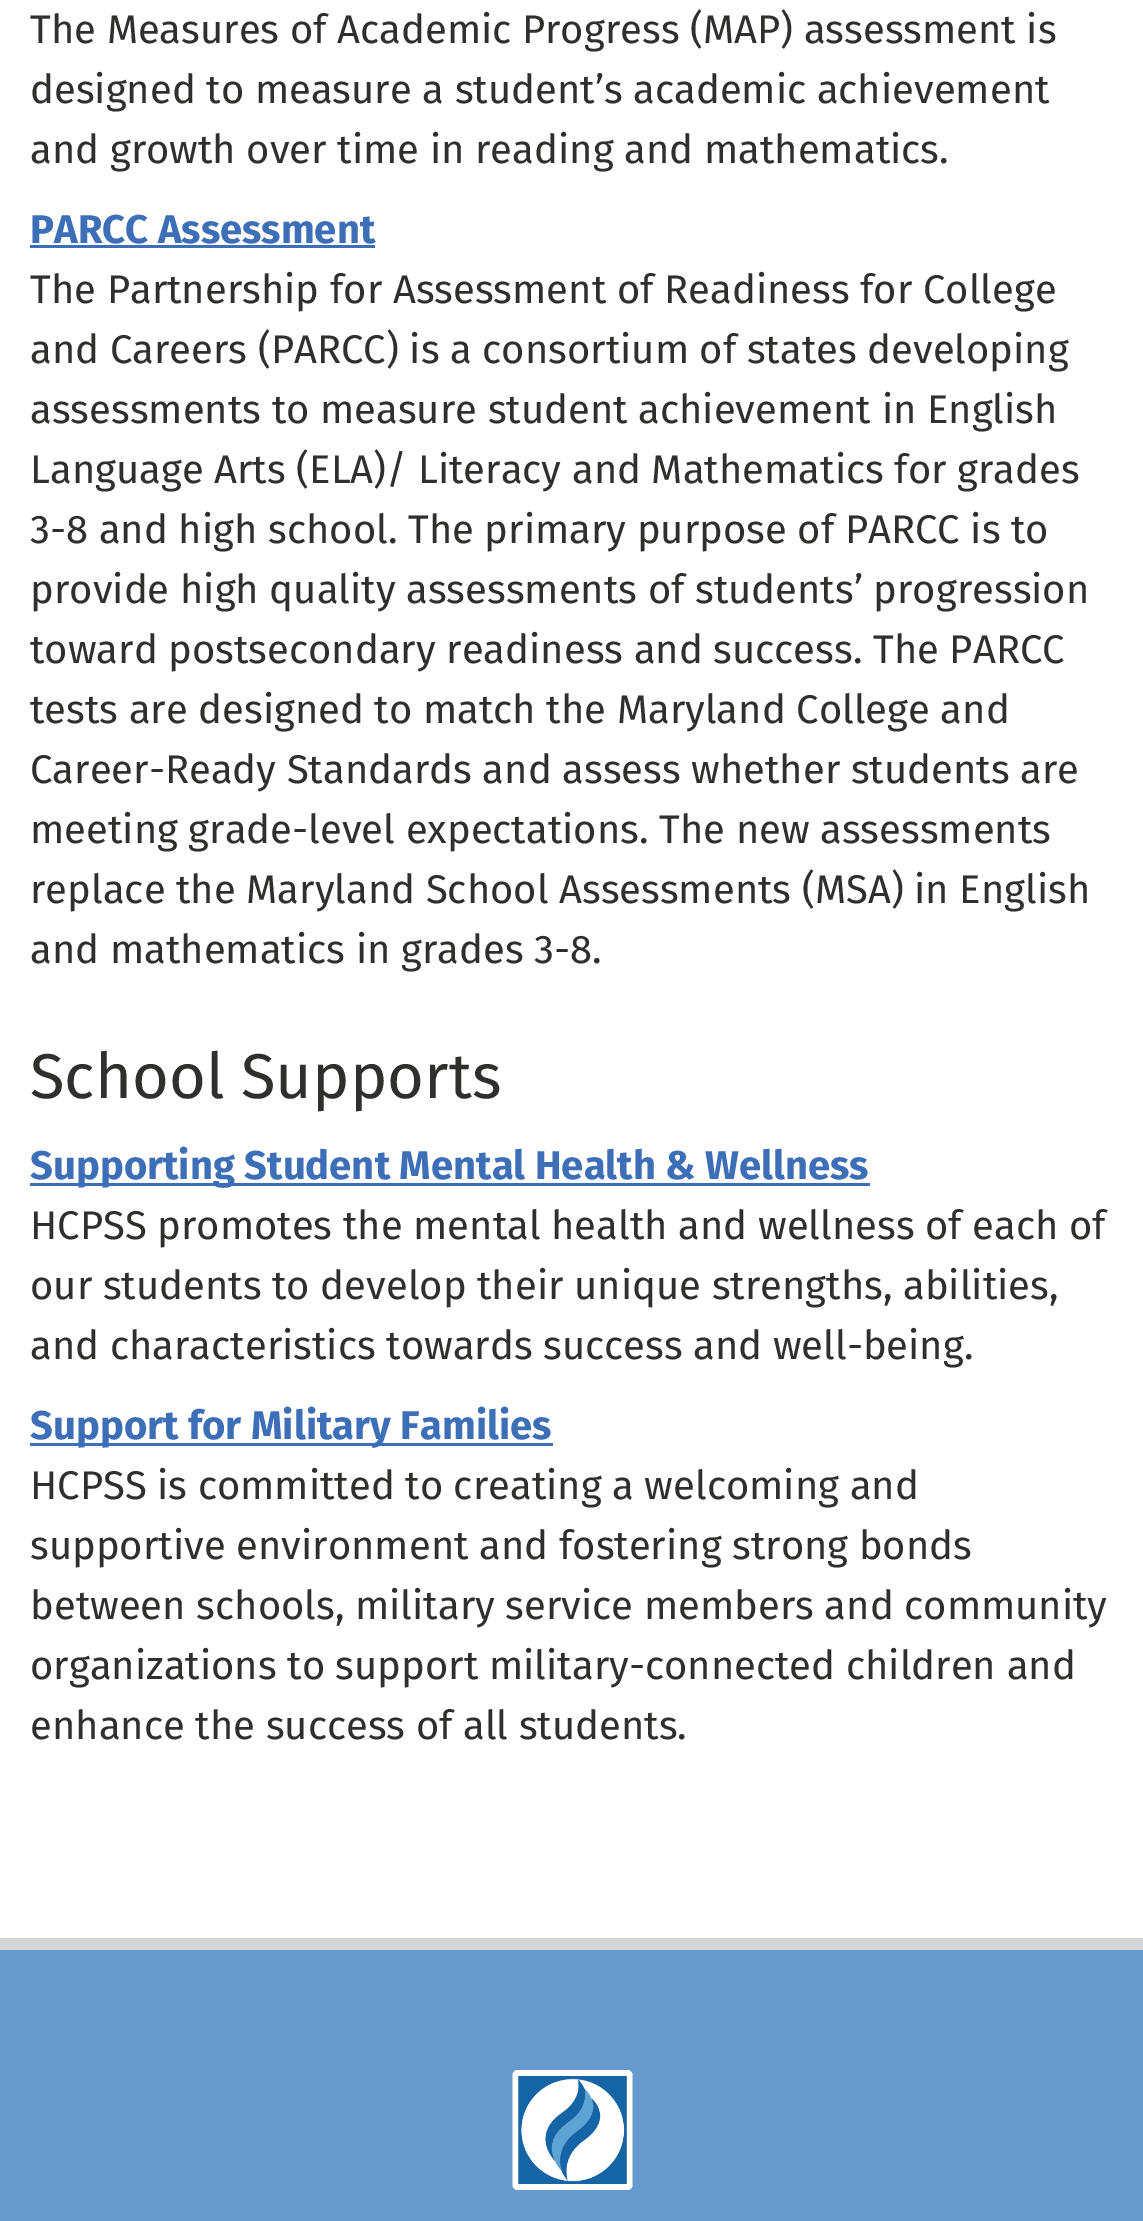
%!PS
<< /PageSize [1143 2221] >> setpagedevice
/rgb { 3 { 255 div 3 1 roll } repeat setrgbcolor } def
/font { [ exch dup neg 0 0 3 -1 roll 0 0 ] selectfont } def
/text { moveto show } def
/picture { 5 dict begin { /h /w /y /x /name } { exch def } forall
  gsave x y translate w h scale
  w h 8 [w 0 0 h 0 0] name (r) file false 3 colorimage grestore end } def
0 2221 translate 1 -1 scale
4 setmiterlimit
255 255 255 rgb
0 0 1143 2221 rectfill
61 110 184 rgb
30 245 345 3 rectfill
30 1183 840 3 rectfill
30 1443 523 3 rectfill
102 153 204 rgb
0 1950 1143 271 rectfill
214 214 214 rgb
0 1938 1143 12 rectfill
(img_01.rgb) 512 2070 121 120 picture
/FiraSans-Regular 40 font
47 47 45 rgb
(The Measures of Academic Progress \(MAP\) assessment is) 30 43 text
(designed to measure a student’s academic achievement) 30 103 text
(and growth over time in reading and mathematics.) 30 163 text
/FiraSans-Bold 40 font
61 110 184 rgb
(PARCC Assessment) 30 243 text
/FiraSans-Regular 40 font
47 47 45 rgb
(The Partnership for Assessment of Readiness for College) 30 303 text
(and Careers \(PARCC\) is a consortium of states developing) 30 363 text
(assessments to measure student achievement in English) 30 423 text
(Language Arts \(ELA\)/ Literacy and Mathematics for grades) 30 483 text
(3-8 and high school. The primary purpose of PARCC is to) 30 543 text
(provide high quality assessments of students’ progression) 30 603 text
(toward postsecondary readiness and success. The PARCC) 30 663 text
(tests are designed to match the Maryland College and) 30 723 text
(Career-Ready Standards and assess whether students are) 30 783 text
(meeting grade-level expectations. The new assessments) 30 843 text
(replace the Maryland School Assessments \(MSA\) in English) 30 903 text
(and mathematics in grades 3-8.) 30 963 text
/FiraSans-Regular 63.25 font
(School Supports) 30 1098 text
/FiraSans-Bold 40 font
61 110 184 rgb
(Supporting Student Mental Health & Wellness) 30 1179 text
/FiraSans-Regular 40 font
47 47 45 rgb
(HCPSS promotes the mental health and wellness of each of) 30 1239 text
(our students to develop their unique strengths, abilities,) 30 1299 text
(and characteristics towards success and well-being.) 30 1359 text
/FiraSans-Bold 40 font
61 110 184 rgb
(Support for Military Families) 30 1439 text
/FiraSans-Regular 40 font
47 47 45 rgb
(HCPSS is committed to creating a welcoming and) 30 1499 text
(supportive environment and fostering strong bonds) 30 1559 text
(between schools, military service members and community) 30 1619 text
(organizations to support military-connected children and) 30 1679 text
(enhance the success of all students.) 30 1739 text
showpage
